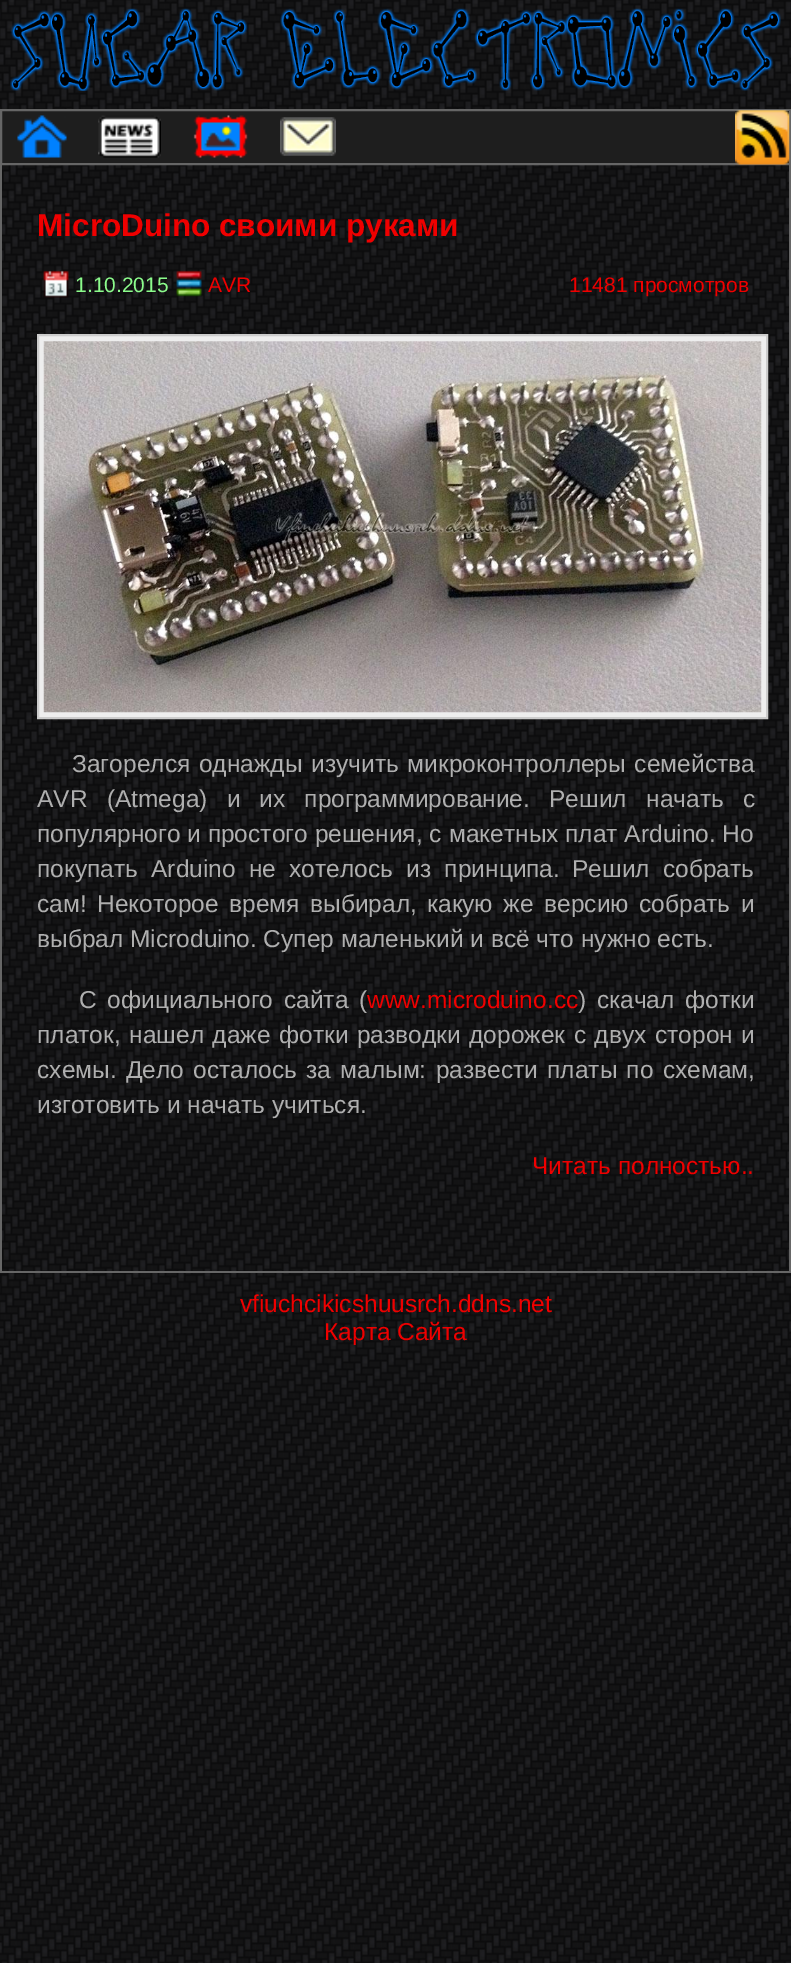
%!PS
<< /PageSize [791 1963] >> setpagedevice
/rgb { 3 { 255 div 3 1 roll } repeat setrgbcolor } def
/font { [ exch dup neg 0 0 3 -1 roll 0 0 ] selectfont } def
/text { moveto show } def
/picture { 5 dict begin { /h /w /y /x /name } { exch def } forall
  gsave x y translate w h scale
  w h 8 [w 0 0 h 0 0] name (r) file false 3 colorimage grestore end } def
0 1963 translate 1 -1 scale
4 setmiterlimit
255 255 255 rgb
0 0 791 1963 rectfill
(img_01.rgb) 0 0 791 1963 picture
(img_02.rgb) 0 9 791 1354 picture
(img_03.rgb) 10 8 771 83 picture
30 30 30 rgb
1 110 moveto 789 0 rlineto 0 54 rlineto -789 0 rlineto closepath gsave fill grestore
102 102 102 rgb
2 setlinewidth
stroke
(img_04.rgb) 17 115 50 43 picture
(img_05.rgb) 98 115 63 43 picture
(img_06.rgb) 193 115 55 43 picture
(img_07.rgb) 280 117 56 39 picture
(img_08.rgb) 735 110 55 55 picture
789 165 2 1106 rectfill
0 165 2 1106 rectfill
(img_09.rgb) 43 270 26 28 picture
(img_10.rgb) 176 270 26 27 picture
238 238 238 rgb
38 335 moveto 729 0 rlineto 0 383 rlineto -729 0 rlineto closepath gsave fill grestore
204 204 204 rgb
stroke
(img_11.rgb) 43 341 719 372 picture
102 102 102 rgb
0 1271 791 2 rectfill
/LiberationSans-Bold 31.5 font
239 0 0 rgb
(MicroDuino своими руками) 37 236 text
/LiberationSans-Regular 21 font
140 252 140 rgb
(1.10.2015) 75 292 text
239 0 0 rgb
(AVR) 208 292 text
(11481 просмотров) 569 292 text
/LiberationSans-Regular 24.5 font
175 175 175 rgb
72 772 moveto 2 0 32 (Загорелся однажды изучить микроконтроллеры семейства) widthshow
37 807 moveto 12.5 0 32 (AVR \(Atmega\) и) widthshow
259 807 moveto 12.5 0 32 (их программирование. Решил начать с) widthshow
(популярного и простого решения, с) 37 842 text
(макетных плат Arduino. Но) 449 842 text
37 877 moveto 6.5 0 32 (покупать Arduino не хотелось из принципа.) widthshow
572 877 moveto 6.5 0 32 (Решил собрать) widthshow
37 912 moveto 3.75 0 32 (сам! Некоторое время выбирал, какую же версию собрать и) widthshow
(выбрал Microduino. Супер маленький и всё что нужно есть.) 37 947 text
79 1008 moveto 4 0 32 (С официального сайта \() widthshow
239 0 0 rgb
(www.microduino.cc) 367 1008 text
175 175 175 rgb
(\)) 578 1008 text
597 1008 moveto 4 0 32 (скачал фотки) widthshow
37 1043 moveto 1.75 0 32 (платок, нашел даже фотки разводки дорожек с двух сторон и) widthshow
37 1078 moveto 2.5 0 32 (схемы. Дело осталось за малым: развести платы по схемам,) widthshow
(изготовить и начать учиться.) 37 1113 text
239 0 0 rgb
(Читать полностью..) 532 1174 text
(vfiuchcikicshuusrch.ddns.net) 240 1312 text
(Карта Сайта) 324 1340 text
showpage
